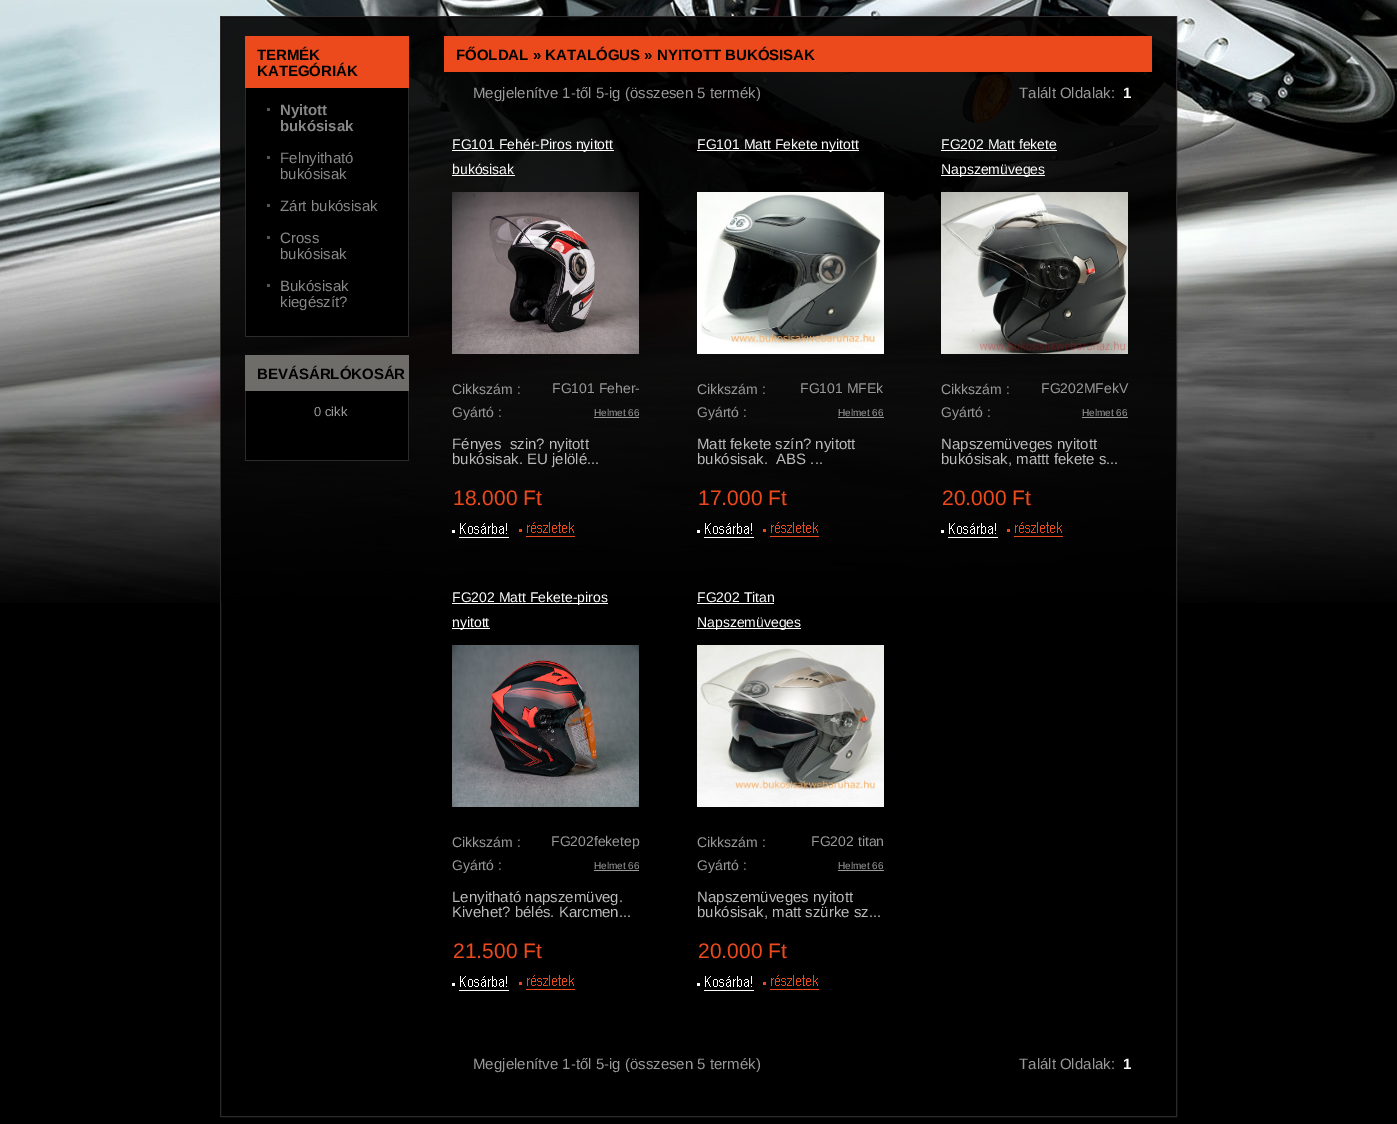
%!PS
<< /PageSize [1397 1124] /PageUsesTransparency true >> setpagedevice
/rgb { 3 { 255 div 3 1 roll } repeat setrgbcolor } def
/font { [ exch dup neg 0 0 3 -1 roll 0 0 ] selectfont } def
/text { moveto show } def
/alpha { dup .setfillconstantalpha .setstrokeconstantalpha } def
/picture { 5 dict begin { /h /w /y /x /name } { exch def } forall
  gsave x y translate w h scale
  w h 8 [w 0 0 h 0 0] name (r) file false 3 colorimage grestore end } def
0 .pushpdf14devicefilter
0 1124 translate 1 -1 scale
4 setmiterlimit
0 0 0 rgb
0 0 1397 1124 rectfill
(img_01.rgb) 0 0 1397 603 picture
45 41 42 rgb
220.5 16.5 956 1100 rectstroke
0.91 alpha
0 0 0 rgb
221 17 955 586 rectfill
1 alpha
236 73 29 rgb
245 36 164 52 rectfill
0 0 0 rgb
246 88 162 248 rectfill
44 42 42 rgb
408 88 1 249 rectfill
245 336 164 1 rectfill
245 88 1 249 rectfill
87 86 86 rgb
267 108 3 3 rectfill
267 156 3 3 rectfill
267 204 3 3 rectfill
267 236 3 3 rectfill
267 284 3 3 rectfill
110 109 106 rgb
245 355 164 36 rectfill
0 0 0 rgb
246 391 162 69 rectfill
44 42 42 rgb
408 391 1 70 rectfill
245 460 164 1 rectfill
245 391 1 70 rectfill
236 73 29 rgb
444 36 708 36 rectfill
255 255 255 rgb
452 150 162 1 rectfill
452 175 63 1 rectfill
(img_02.rgb) 452 192 187 162 picture
153 153 153 rgb
594 417 45 1 rectfill
(img_03.rgb) 452 523 57 15 picture
(img_04.rgb) 519 522 56 15 picture
255 255 255 rgb
697 150 162 1 rectfill
(img_05.rgb) 697 192 187 162 picture
153 153 153 rgb
838 417 46 1 rectfill
(img_06.rgb) 697 523 57 15 picture
(img_07.rgb) 763 522 56 15 picture
255 255 255 rgb
941 150 116 1 rectfill
941 175 104 1 rectfill
(img_08.rgb) 941 192 187 162 picture
153 153 153 rgb
1082 417 46 1 rectfill
(img_09.rgb) 941 523 57 15 picture
(img_10.rgb) 1007 522 56 15 picture
255 255 255 rgb
452 603 156 1 rectfill
452 628 38 1 rectfill
(img_11.rgb) 452 645 187 162 picture
153 153 153 rgb
594 870 45 1 rectfill
(img_12.rgb) 452 976 57 15 picture
(img_13.rgb) 519 975 56 15 picture
255 255 255 rgb
697 603 77 1 rectfill
697 628 104 1 rectfill
(img_14.rgb) 697 645 187 162 picture
153 153 153 rgb
838 870 46 1 rectfill
(img_12.rgb) 697 976 57 15 picture
(img_13.rgb) 763 975 56 15 picture
/LiberationSans-Bold 15 font
0 0 0 rgb
(TERMÉK) 257 60 text
(KATEGÓRIÁK) 257 76 text
136 136 136 rgb
(Nyitott) 280 115 text
(bukósisak) 280 131 text
/LiberationSans-Regular 15 font
(Felnyitható) 280 163 text
(bukósisak) 280 179 text
(Zárt bukósisak) 280 211 text
(Cross) 280 243 text
(bukósisak) 280 259 text
(Bukósisak) 280 291 text
(kiegészít?) 280 307 text
/LiberationSans-Bold 15 font
0 0 0 rgb
(BEVÁSÁRLÓKOSÁR) 257 379 text
/LiberationSans-Regular 13 font
153 153 153 rgb
(0 cikk) 314 416 text
/LiberationSans-Bold 15 font
0 0 0 rgb
(FŐOLDAL » KATALÓGUS » NYITOTT BUKÓSISAK) 456 60 text
/LiberationSans-Regular 15 font
153 153 153 rgb
(Megjelenítve 1-től 5-ig \(összesen 5 termék\)) 473 98 text
(Talált Oldalak:) 1019 98 text
/LiberationSans-Bold 15 font
255 255 254 rgb
(1) 1123 98 text
/LiberationSans-Regular 14 font
(FG101 Fehér-Piros nyitott) 452 149 text
(bukósisak) 452 174 text
153 153 153 rgb
(Cikkszám :) 452 394 text
(FG101 Feher-) 552 393 text
(Gyártó :) 452 417 text
/LiberationSans-Regular 10 font
(Helmet 66) 594 416 text
/LiberationSans-Regular 15 font
187 187 187 rgb
(Fényes  szin? nyitott) 452 449 text
(bukósisak. EU jelölé...) 452 464 text
/LiberationSans-Regular 21 font
236 73 29 rgb
(18.000 Ft) 453 505 text
/LiberationSans-Regular 14 font
255 255 254 rgb
(FG101 Matt Fekete nyitott) 697 149 text
153 153 153 rgb
(Cikkszám :) 697 394 text
(FG101 MFEk) 800 393 text
(Gyártó :) 697 417 text
/LiberationSans-Regular 10 font
(Helmet 66) 838 416 text
/LiberationSans-Regular 15 font
187 187 187 rgb
(Matt fekete szín? nyitott) 697 449 text
(bukósisak.  ABS ...) 697 464 text
/LiberationSans-Regular 21 font
236 73 29 rgb
(17.000 Ft) 698 505 text
/LiberationSans-Regular 14 font
255 255 254 rgb
(FG202 Matt fekete) 941 149 text
(Napszemüveges) 941 174 text
153 153 153 rgb
(Cikkszám :) 941 394 text
(FG202MFekV) 1041 393 text
(Gyártó :) 941 417 text
/LiberationSans-Regular 10 font
(Helmet 66) 1082 416 text
/LiberationSans-Regular 15 font
187 187 187 rgb
(Napszemüveges nyitott) 941 449 text
(bukósisak, mattt fekete s...) 941 464 text
/LiberationSans-Regular 21 font
236 73 29 rgb
(20.000 Ft) 942 505 text
/LiberationSans-Regular 14 font
255 255 254 rgb
(FG202 Matt Fekete-piros) 452 602 text
(nyitott) 452 627 text
153 153 153 rgb
(Cikkszám :) 452 847 text
(FG202feketep) 551 846 text
(Gyártó :) 452 870 text
/LiberationSans-Regular 10 font
(Helmet 66) 594 869 text
/LiberationSans-Regular 15 font
187 187 187 rgb
(Lenyitható napszemüveg.) 452 902 text
(Kivehet? bélés. Karcmen...) 452 917 text
/LiberationSans-Regular 21 font
236 73 29 rgb
(21.500 Ft) 453 958 text
/LiberationSans-Regular 14 font
255 255 254 rgb
(FG202 Titan) 697 602 text
(Napszemüveges) 697 627 text
153 153 153 rgb
(Cikkszám :) 697 847 text
(FG202 titan) 811 846 text
(Gyártó :) 697 870 text
/LiberationSans-Regular 10 font
(Helmet 66) 838 869 text
/LiberationSans-Regular 15 font
187 187 187 rgb
(Napszemüveges nyitott) 697 902 text
(bukósisak, matt szürke sz...) 697 917 text
/LiberationSans-Regular 21 font
236 73 29 rgb
(20.000 Ft) 698 958 text
/LiberationSans-Regular 15 font
153 153 153 rgb
(Megjelenítve 1-től 5-ig \(összesen 5 termék\)) 473 1069 text
(Talált Oldalak:) 1019 1069 text
/LiberationSans-Bold 15 font
255 255 254 rgb
(1) 1123 1069 text
.poppdf14devicefilter showpage
